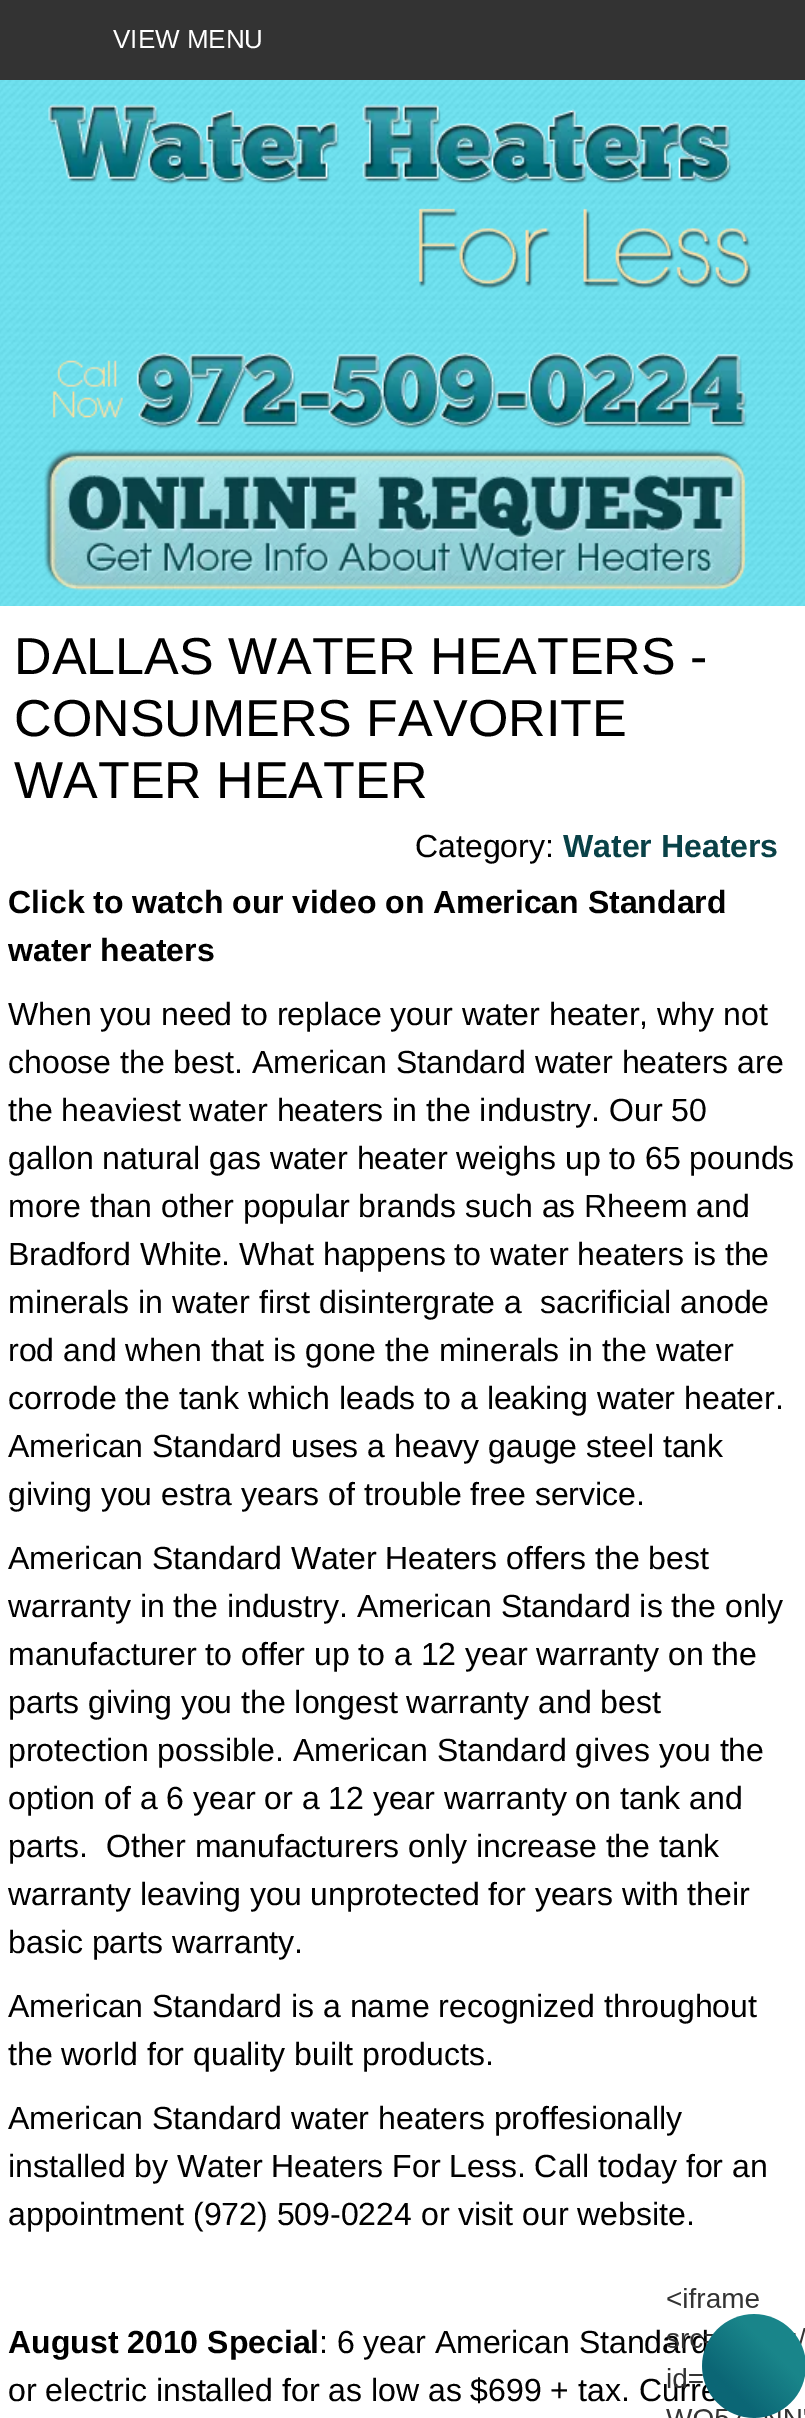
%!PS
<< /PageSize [805 2418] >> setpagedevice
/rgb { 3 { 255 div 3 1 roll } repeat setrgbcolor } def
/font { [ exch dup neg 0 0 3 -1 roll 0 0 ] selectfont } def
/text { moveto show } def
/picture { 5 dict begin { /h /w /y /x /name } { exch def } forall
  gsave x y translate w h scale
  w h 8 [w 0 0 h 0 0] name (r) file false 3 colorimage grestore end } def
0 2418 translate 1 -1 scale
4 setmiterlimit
255 255 255 rgb
0 0 805 2418 rectfill
(img_01.rgb) 0 80 805 526 picture
51 51 51 rgb
0 0 805 80 rectfill
(img_02.rgb) 44 104 708 487 picture
/LiberationSans-Regular 26 font
255 255 255 rgb
(VIEW MENU) 113 48 text
/LiberationSans-Regular 52 font
0 0 0 rgb
(DALLAS WATER HEATERS -) 14 674 text
(CONSUMERS FAVORITE) 14 736 text
(WATER HEATER) 14 798 text
/LiberationSans-Regular 32 font
(Category:) 415 857 text
/LiberationSans-Bold 32 font
9 65 71 rgb
(Water Heaters) 563 857 text
0 0 0 rgb
(Click to watch our video on American Standard) 8 913 text
(water heaters) 8 961 text
/LiberationSans-Regular 32 font
(When you need to replace your water heater, why not) 8 1025 text
(choose the best. American Standard water heaters are) 8 1073 text
(the heaviest water heaters in the industry. Our 50) 8 1121 text
(gallon natural gas water heater weighs up to 65 pounds) 8 1169 text
(more than other popular brands such as Rheem and) 8 1217 text
(Bradford White. What happens to water heaters is the) 8 1265 text
(minerals in water first disintergrate a  sacrificial anode) 8 1313 text
(rod and when that is gone the minerals in the water) 8 1361 text
(corrode the tank which leads to a leaking water heater.) 8 1409 text
(American Standard uses a heavy gauge steel tank) 8 1457 text
(giving you estra years of trouble free service.) 8 1505 text
(American Standard Water Heaters offers the best) 8 1569 text
(warranty in the industry. American Standard is the only) 8 1617 text
(manufacturer to offer up to a 12 year warranty on the) 8 1665 text
(parts giving you the longest warranty and best) 8 1713 text
(protection possible. American Standard gives you the) 8 1761 text
(option of a 6 year or a 12 year warranty on tank and) 8 1809 text
(parts.  Other manufacturers only increase the tank) 8 1857 text
(warranty leaving you unprotected for years with their) 8 1905 text
(basic parts warranty.) 8 1953 text
(American Standard is a name recognized throughout) 8 2017 text
(the world for quality built products.) 8 2065 text
(American Standard water heaters proffesionally) 8 2129 text
(installed by Water Heaters For Less. Call today for an) 8 2177 text
(appointment \(972\) 509-0224 or visit our website.) 8 2225 text
/LiberationSans-Bold 32 font
(August 2010 Special) 8 2353 text
/LiberationSans-Regular 32 font
(: 6 year American Standard) 319 2353 text
(or electric installed for as low as $699 + tax. Curre) 8 2401 text
(img_03.rgb) 666 2288 139 130 picture
showpage
